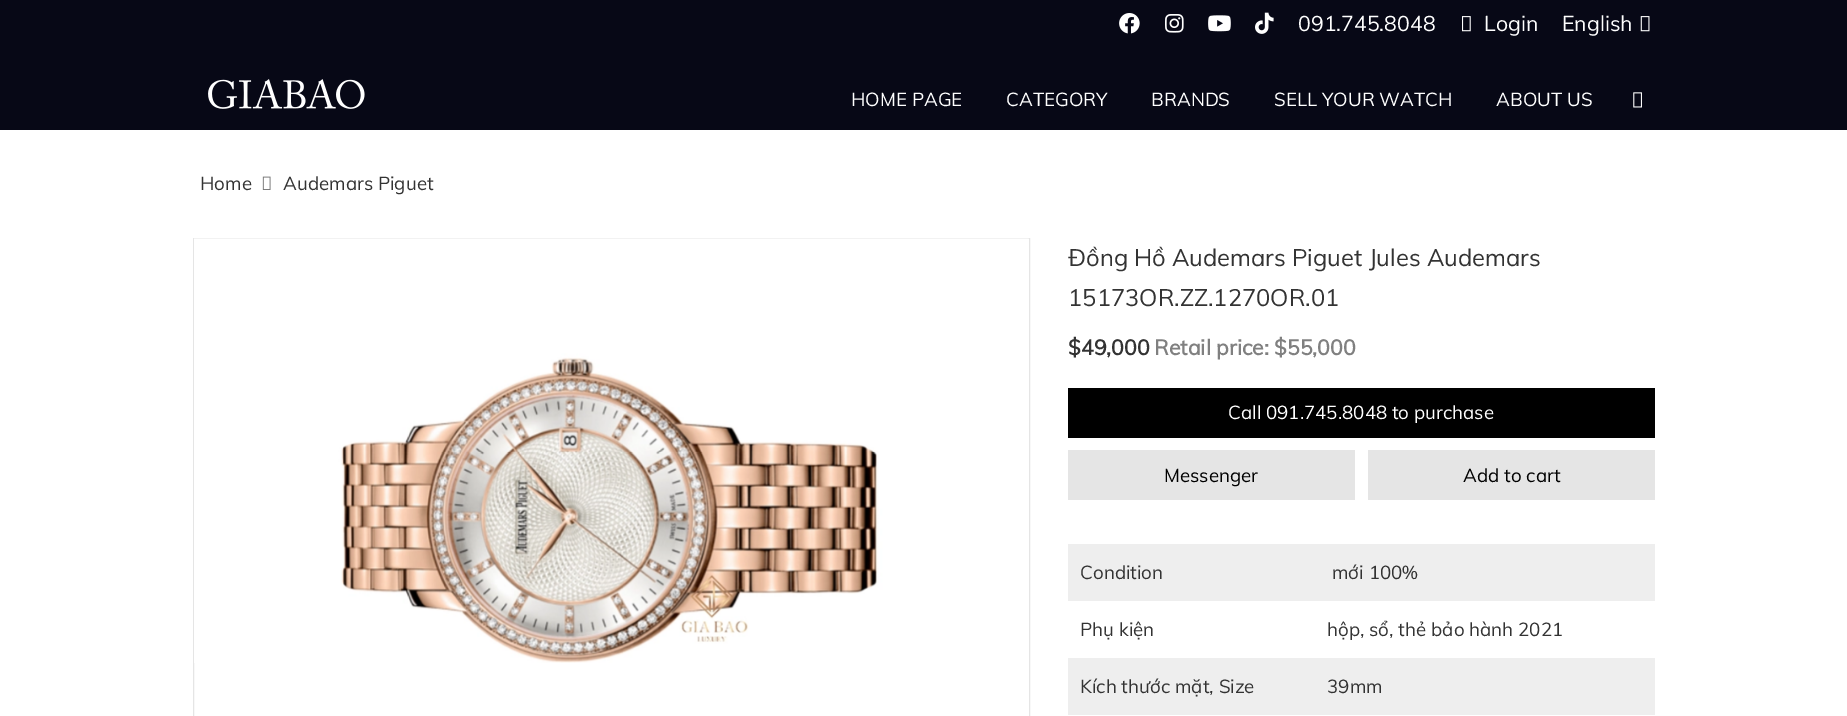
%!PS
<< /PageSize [1847 716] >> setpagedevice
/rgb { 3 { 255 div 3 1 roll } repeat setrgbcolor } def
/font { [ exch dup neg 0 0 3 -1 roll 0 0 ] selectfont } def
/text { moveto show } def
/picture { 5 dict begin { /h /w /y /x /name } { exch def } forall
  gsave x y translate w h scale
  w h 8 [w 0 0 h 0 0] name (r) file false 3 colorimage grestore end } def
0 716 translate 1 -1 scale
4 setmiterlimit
255 255 255 rgb
0 0 1847 716 rectfill
7 8 22 rgb
0 0 1847 130 rectfill
(img_01.rgb) 1119 13 21 21 picture
(img_02.rgb) 1165 14 19 19 picture
(img_03.rgb) 1208 15 23 17 picture
(img_04.rgb) 1255 12 19 22 picture
(img_05.rgb) 1462 16 9 16 picture
(img_06.rgb) 1640 16 10 16 picture
(img_07.rgb) 208 79 157 30 picture
(img_08.rgb) 1633 92 9 16 picture
(img_09.rgb) 262 176 9 14 picture
229 229 229 rgb
193.5 238.5 836 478 rectstroke
(img_10.rgb) 194 238 835 425 picture
0 0 0 rgb
1068 388 587 50 rectfill
229 229 229 rgb
1068 450 287 50 rectfill
1368 450 287 50 rectfill
238 238 238 rgb
1068 544 587 57 rectfill
1068 658 587 57 rectfill
/Muli-Regular 21.25 font
255 255 255 rgb
(091.745.8048) 1298 31 text
(Login) 1484 31 text
(English) 1562 31 text
/Muli-Regular 18.75 font
(HOME PAGE) 851 106 text
(CATEGORY) 1006 106 text
(BRANDS) 1151 106 text
(SELL YOUR WATCH) 1274 106 text
(ABOUT US) 1496 106 text
51 51 51 rgb
(Home) 200 190 text
(Audemars Piguet) 283 190 text
/Muli-Regular 23.75 font
(Đồng Hồ Audemars Piguet Jules Audemars) 1068 266 text
(15173OR.ZZ.1270OR.01) 1068 306 text
/Muli-Bold 21.25 font
($49,000) 1068 355 text
128 128 128 rgb
(Retail price: $55,000) 1154 355 text
/Muli-Regular 18.75 font
255 255 255 rgb
(Call 091.745.8048 to purchase) 1228 419 text
0 0 0 rgb
(Messenger) 1164 482 text
(Add to cart) 1463 482 text
51 51 51 rgb
(Condition) 1080 579 text
(mới 100%) 1332 579 text
(Phụ kiện) 1080 636 text
(hộp, sổ, thẻ bảo hành 2021) 1327 636 text
(Kích thước mặt, Size) 1080 693 text
(39mm) 1327 693 text
showpage
